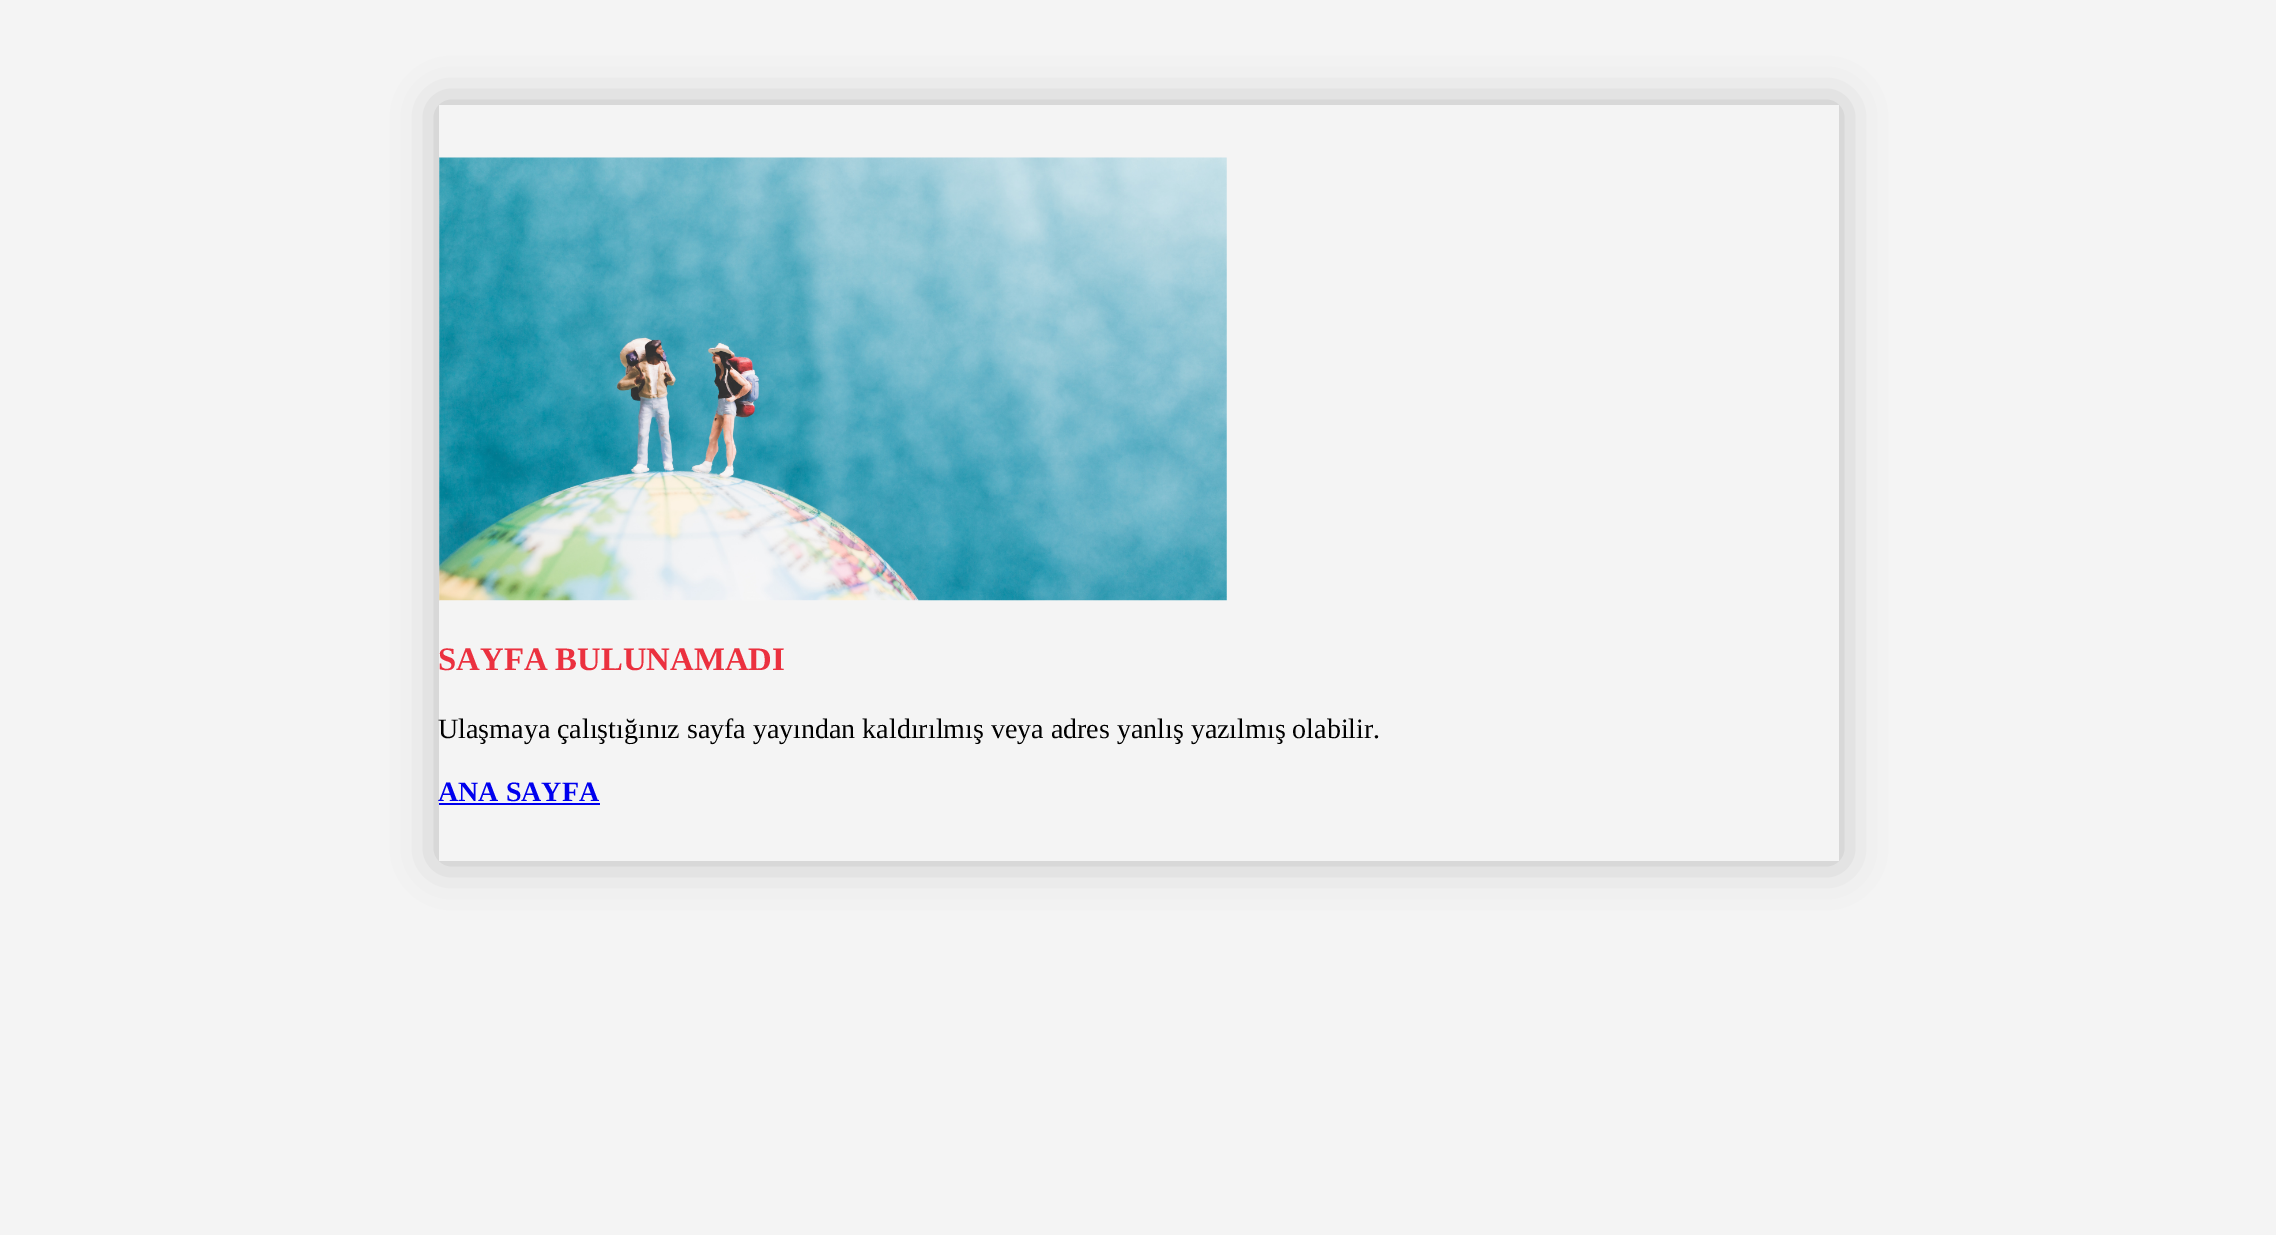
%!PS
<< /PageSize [2276 1235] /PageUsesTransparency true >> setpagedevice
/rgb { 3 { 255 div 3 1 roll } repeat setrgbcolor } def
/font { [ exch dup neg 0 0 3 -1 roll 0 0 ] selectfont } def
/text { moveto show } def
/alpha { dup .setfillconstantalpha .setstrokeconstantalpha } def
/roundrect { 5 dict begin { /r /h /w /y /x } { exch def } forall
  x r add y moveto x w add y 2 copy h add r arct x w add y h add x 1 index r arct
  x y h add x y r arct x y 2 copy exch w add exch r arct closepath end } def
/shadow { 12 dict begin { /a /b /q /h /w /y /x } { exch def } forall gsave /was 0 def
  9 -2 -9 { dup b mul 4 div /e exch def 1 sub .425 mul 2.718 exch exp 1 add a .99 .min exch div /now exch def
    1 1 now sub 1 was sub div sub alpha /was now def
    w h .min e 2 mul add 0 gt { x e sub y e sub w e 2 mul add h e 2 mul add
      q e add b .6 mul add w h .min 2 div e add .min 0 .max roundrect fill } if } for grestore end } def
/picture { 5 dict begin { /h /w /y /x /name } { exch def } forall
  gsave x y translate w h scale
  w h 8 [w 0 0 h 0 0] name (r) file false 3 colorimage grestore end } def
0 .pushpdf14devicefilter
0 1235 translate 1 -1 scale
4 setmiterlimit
244 244 244 rgb
0 0 2276 1235 rectfill
gsave
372 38 moveto 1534 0 rlineto 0 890 rlineto -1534 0 rlineto closepath 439 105 moveto 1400 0 rlineto 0 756 rlineto -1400 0 rlineto closepath eoclip newpath
187 187 187 rgb
439 105 1400 756 0 22 1 shadow
grestore
(img_01.rgb) 439 157 788 444 picture
0 0 238 rgb
439 803 161 2 rectfill
/LiberationSerif-Bold 32.75 font
235 49 63 rgb
(SAYFA BULUNAMADI) 438 670 text
/LiberationSerif-Regular 28 font
0 0 0 rgb
(Ulaşmaya çalıştığınız sayfa yayından kaldırılmış veya adres yanlış yazılmış olabilir.) 438 738 text
/LiberationSerif-Bold 28 font
0 0 238 rgb
(ANA SAYFA) 438 801 text
.poppdf14devicefilter showpage
